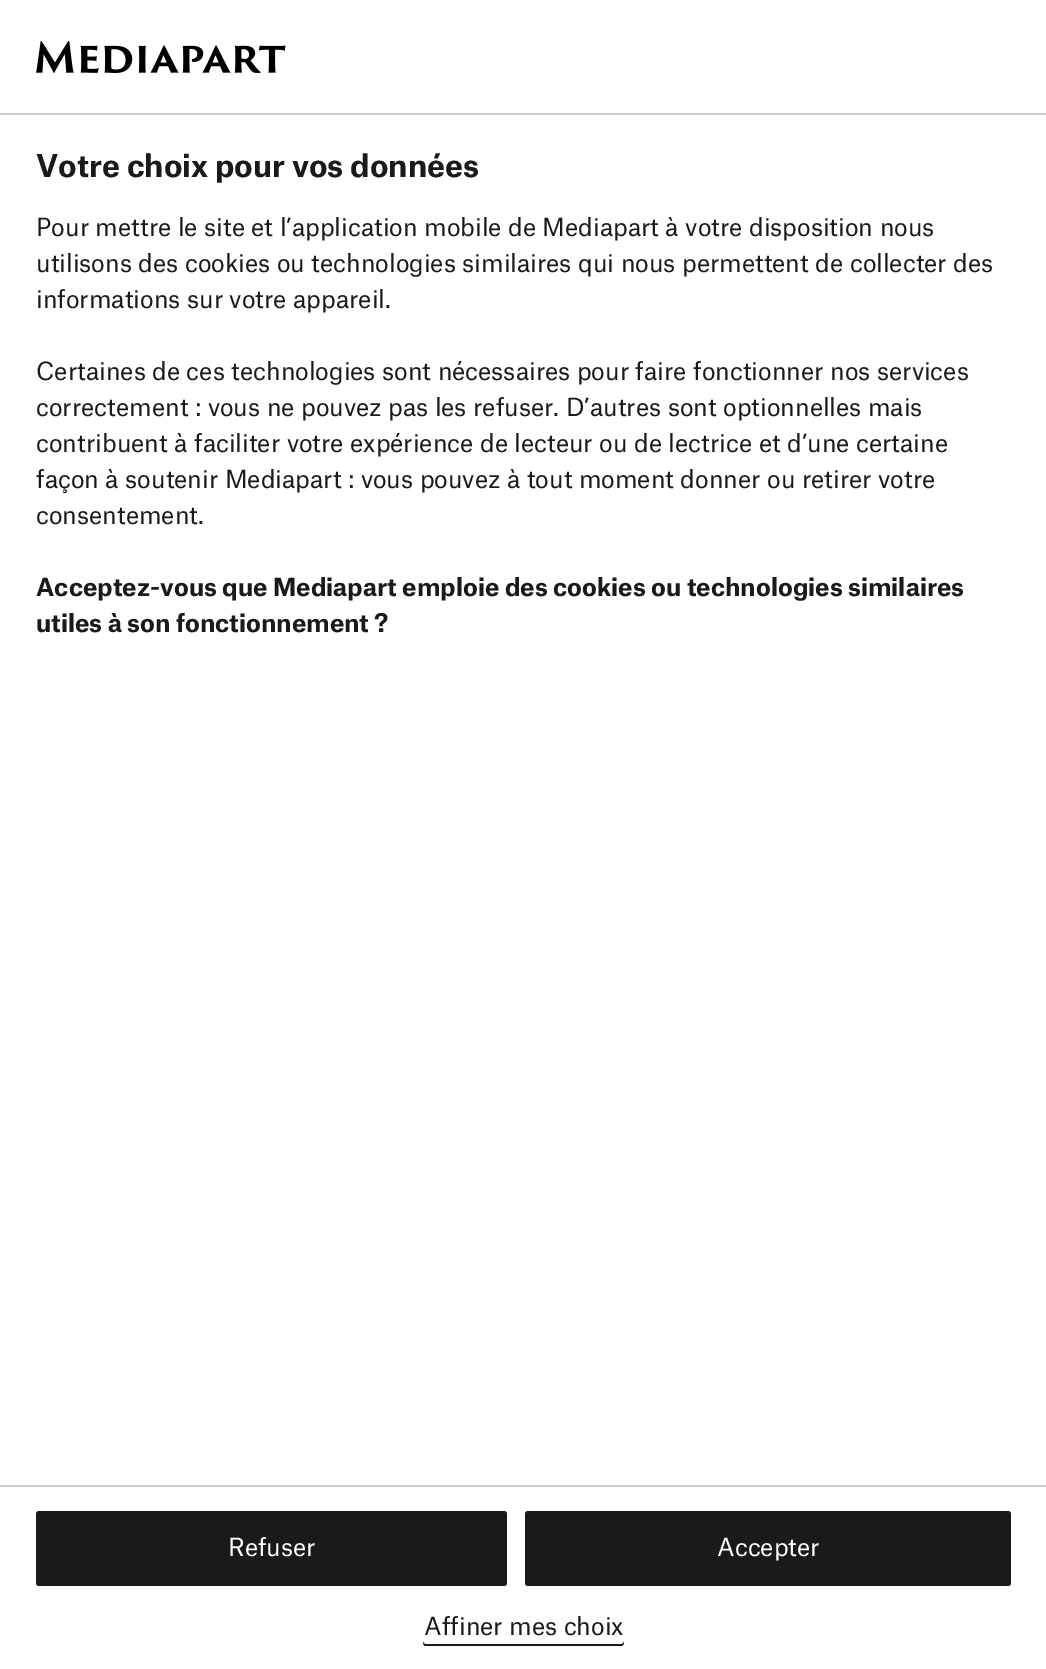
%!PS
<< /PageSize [1046 1669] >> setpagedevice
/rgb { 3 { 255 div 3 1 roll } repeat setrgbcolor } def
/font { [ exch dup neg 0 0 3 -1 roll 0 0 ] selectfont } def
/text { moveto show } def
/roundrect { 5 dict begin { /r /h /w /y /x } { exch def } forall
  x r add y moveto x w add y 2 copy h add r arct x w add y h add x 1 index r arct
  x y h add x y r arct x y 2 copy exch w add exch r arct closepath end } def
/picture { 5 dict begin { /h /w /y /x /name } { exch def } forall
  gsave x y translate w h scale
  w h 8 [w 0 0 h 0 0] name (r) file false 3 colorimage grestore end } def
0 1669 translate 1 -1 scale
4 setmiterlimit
255 255 255 rgb
0 0 1046 1669 rectfill
204 204 204 rgb
0 113 1046 2 rectfill
(img_01.rgb) 36 41 250 32 picture
0 1485 1046 2 rectfill
26 26 26 rgb
36 1511 471 75 3 roundrect fill
525 1511 486 75 3 roundrect fill
423 1641 moveto 0 2 0 4 2 5 rcurveto 196 0 rlineto 3 0 3 -3 3 -5 rcurveto 0 2 -1 3 -3 3 rcurveto -195 0 rlineto -2 0 -3 -1 -3 -3 rcurveto closepath fill
/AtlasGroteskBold-Bold 30 font
(Votre choix pour vos données) 36 177 text
/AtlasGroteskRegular-Regular 24 font
(Pour mettre le site et l’application mobile de Mediapart à votre disposition nous) 36 236 text
(utilisons des cookies ou technologies similaires qui nous permettent de collecter des) 36 272 text
(informations sur votre appareil.) 36 308 text
(Certaines de ces technologies sont nécessaires pour faire fonctionner nos services) 36 380 text
(correctement : vous ne pouvez pas les refuser. D’autres sont optionnelles mais) 36 416 text
(contribuent à faciliter votre expérience de lecteur ou de lectrice et d’une certaine) 36 452 text
(façon à soutenir Mediapart : vous pouvez à tout moment donner ou retirer votre) 36 488 text
(consentement.) 36 524 text
/AtlasGroteskBold-Bold 24 font
(Acceptez-vous que Mediapart emploie des cookies ou technologies similaires) 36 596 text
(utiles à son fonctionnement ?) 36 632 text
/AtlasGroteskRegular-Regular 24 font
255 255 255 rgb
(Refuser) 228 1556 text
(Accepter) 717 1556 text
26 26 26 rgb
(Affiner mes choix) 424 1635 text
showpage
